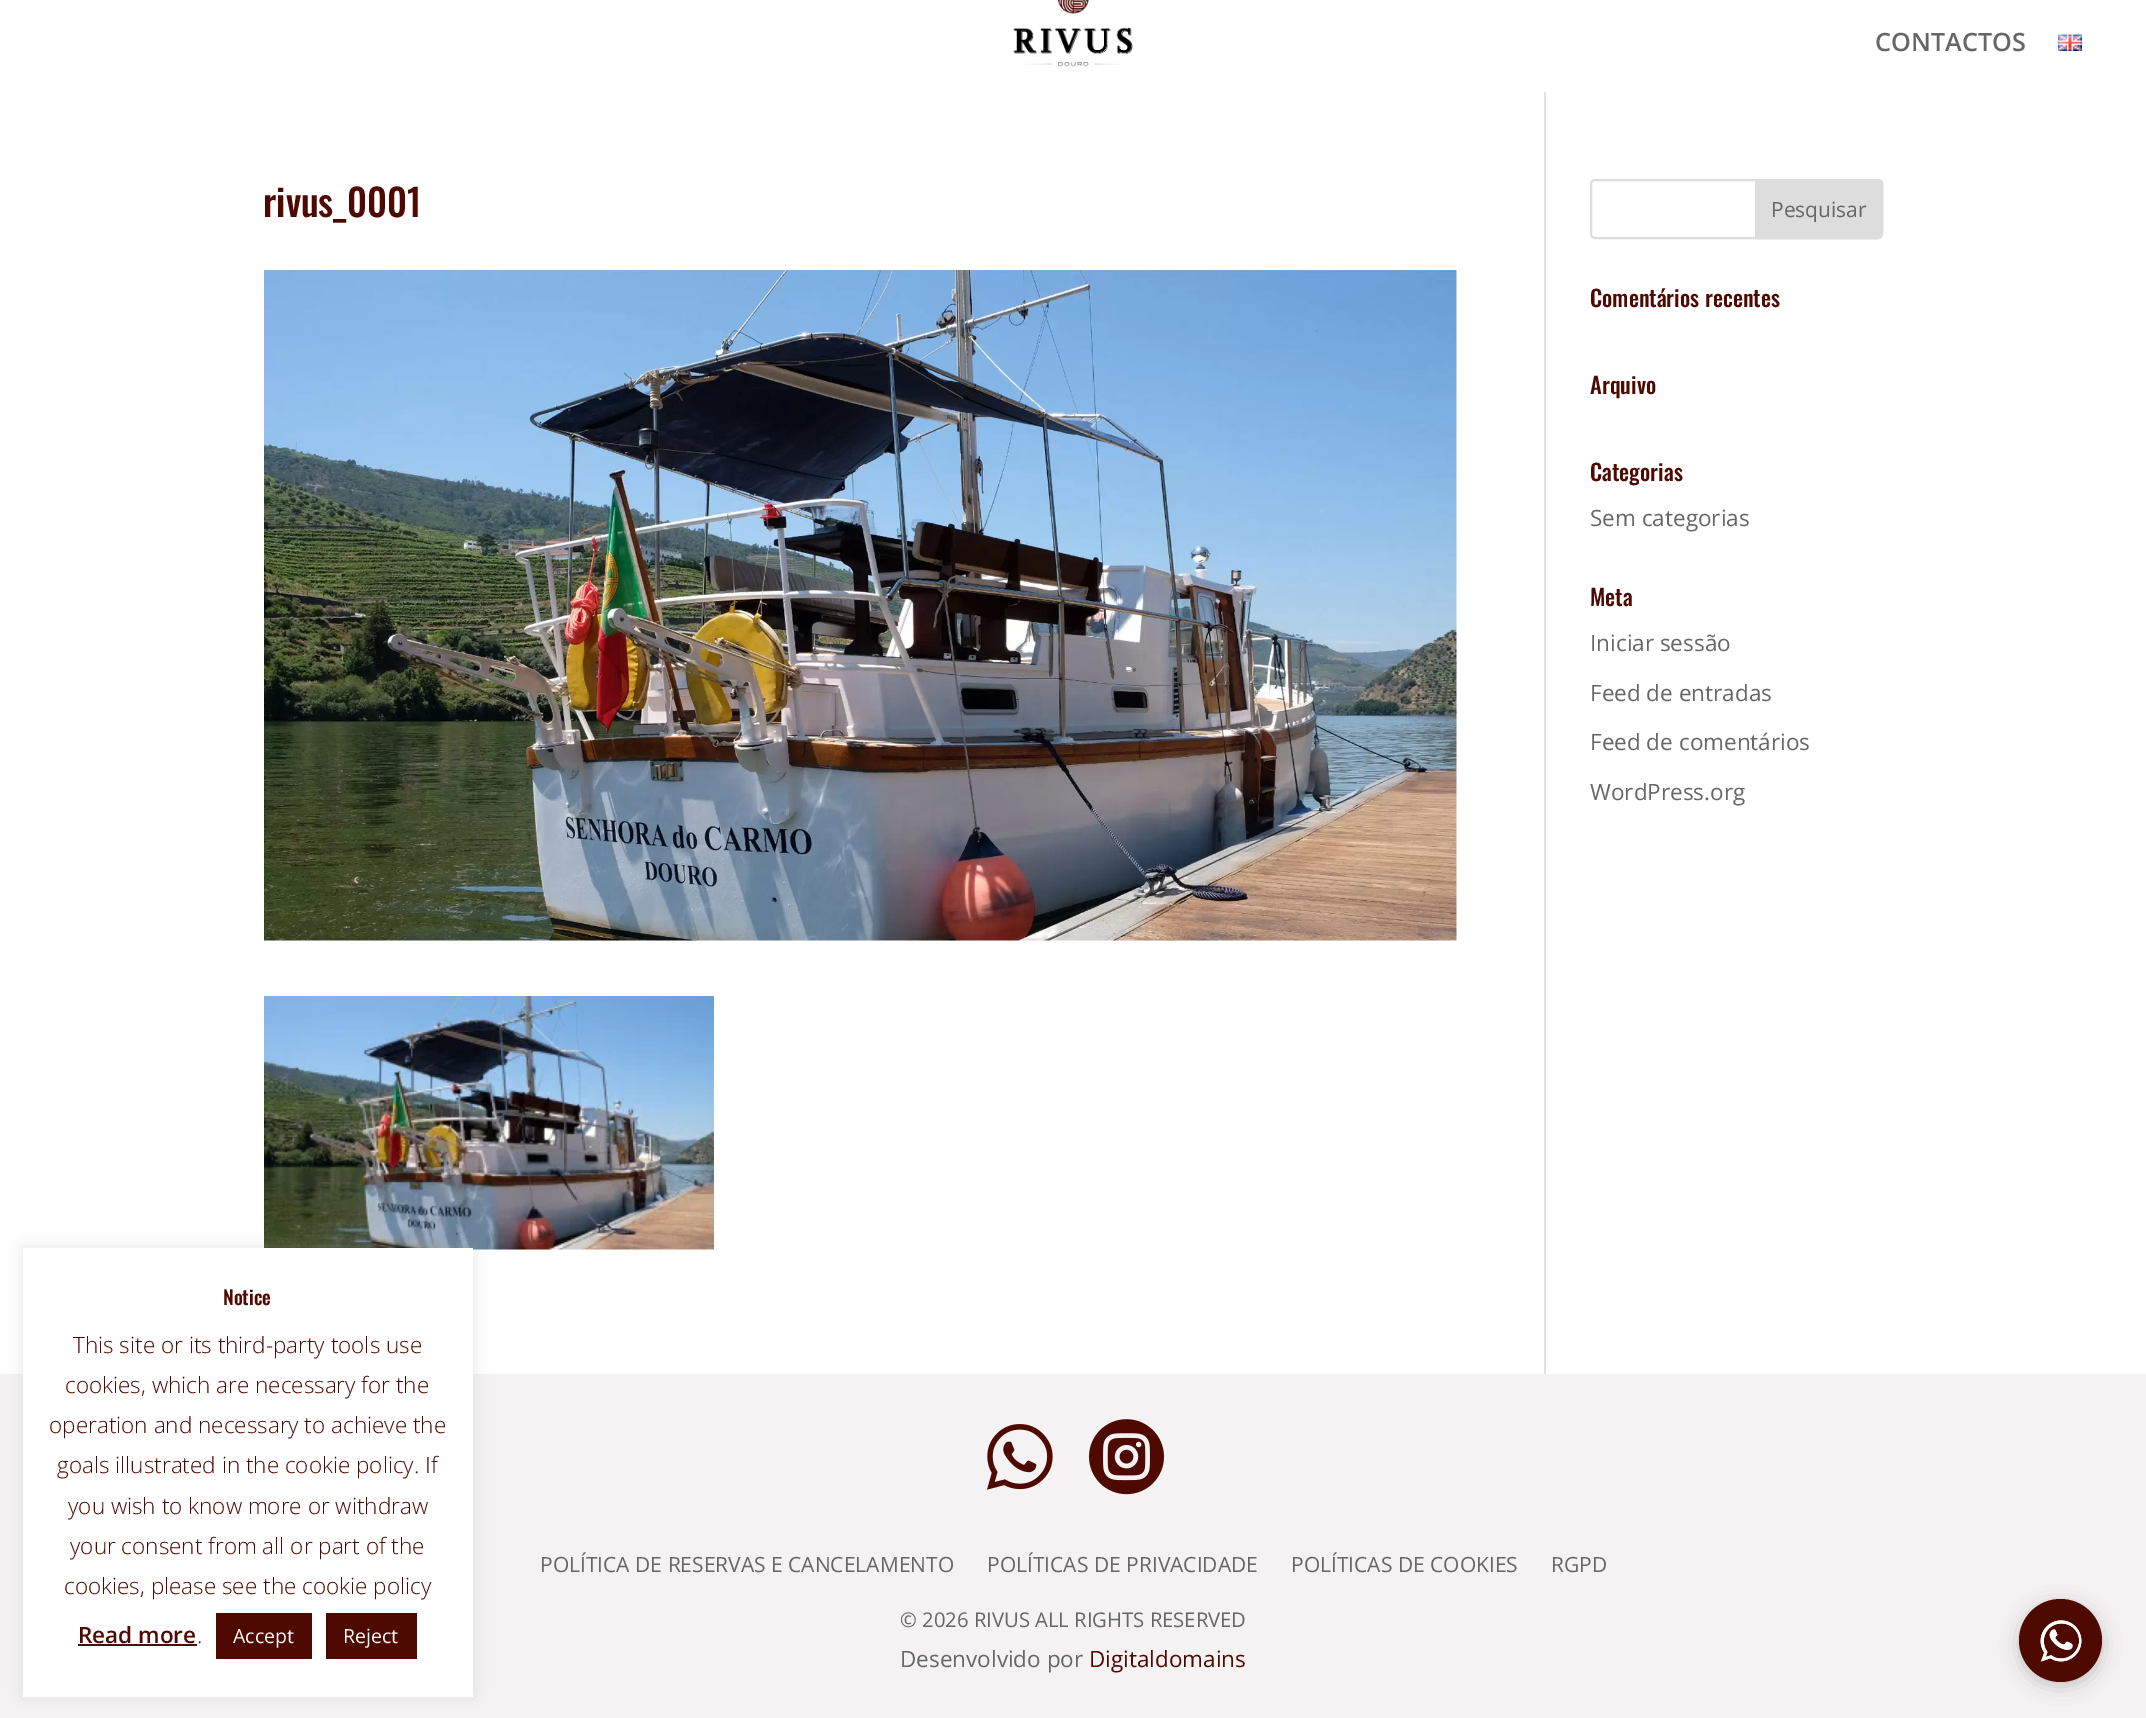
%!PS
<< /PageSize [2146 1718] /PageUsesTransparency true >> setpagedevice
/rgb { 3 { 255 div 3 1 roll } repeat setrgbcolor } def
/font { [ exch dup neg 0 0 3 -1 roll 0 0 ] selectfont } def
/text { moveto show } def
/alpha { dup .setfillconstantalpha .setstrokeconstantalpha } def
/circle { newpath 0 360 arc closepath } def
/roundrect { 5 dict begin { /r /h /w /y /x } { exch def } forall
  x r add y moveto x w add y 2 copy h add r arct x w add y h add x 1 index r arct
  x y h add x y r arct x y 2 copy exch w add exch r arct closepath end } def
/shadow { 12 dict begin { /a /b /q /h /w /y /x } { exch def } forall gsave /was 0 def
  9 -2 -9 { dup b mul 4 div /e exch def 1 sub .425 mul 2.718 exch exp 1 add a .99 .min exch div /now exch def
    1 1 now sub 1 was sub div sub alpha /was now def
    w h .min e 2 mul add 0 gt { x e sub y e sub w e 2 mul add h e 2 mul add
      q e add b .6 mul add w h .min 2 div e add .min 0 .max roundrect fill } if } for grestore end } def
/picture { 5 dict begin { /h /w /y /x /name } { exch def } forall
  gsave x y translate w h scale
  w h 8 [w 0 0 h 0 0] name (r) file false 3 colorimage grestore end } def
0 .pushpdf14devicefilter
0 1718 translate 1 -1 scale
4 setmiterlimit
255 255 255 rgb
0 0 2146 1718 rectfill
(img_04.rgb) 264 996 450 254 picture
244 242 242 rgb
0 1374 2146 344 rectfill
172 171 171 rgb
23 1247 450 448 0 7.5 0.3 shadow
255 255 255 rgb
23 1248 450 449 rectfill
78 9 0 rgb
78 1644 119 2 rectfill
216 1613 96 46 rectfill
326 1613 91 46 rectfill
(img_01.rgb) 1013 0 120 67 picture
(img_02.rgb) 2058 34 24 17 picture
226 226 226 rgb
1544 92 2 1282 rectfill
(img_03.rgb) 264 270 1193 671 picture
221 221 221 rgb
2 setlinewidth
1591 180 291 58 4 roundrect stroke
1756 180 moveto 122 0 rlineto 2 0 4 2 4 4 rcurveto 0 50 rlineto 0 2 -2 4 -4 4 rcurveto -122 0 rlineto closepath gsave fill grestore
stroke
(img_05.rgb) 987 1424 66 66 picture
(img_06.rgb) 1089 1419 75 76 picture
0 0 0 rgb
2019 1604 83 82 41 9 0.2 shadow
78 9 0 rgb
2060.5 1640.5 41.5 circle fill
(img_07.rgb) 2040 1620 42 42 picture
/Oswald-Medium 19.5 font
(Notice) 223 1305 text
/OpenSans-Light 22.5 font
(This site or its third-party tools use) 73 1353 text
(cookies, which are necessary for the) 65 1393 text
(operation and necessary to achieve the) 49 1433 text
(goals illustrated in the cookie policy. If) 57 1473 text
(you wish to know more or withdraw) 68 1514 text
(your consent from all or part of the) 70 1554 text
(cookies, please see the cookie policy) 64 1594 text
/OpenSans-SemiBold 22.5 font
(Read more) 78 1643 text
/OpenSans-Light 22.5 font
(.) 197 1643 text
/OpenSans-Regular 19.5 font
255 255 255 rgb
(Accept) 233 1643 text
(Reject) 343 1643 text
/OpenSans-SemiBold 25.25 font
102 102 102 rgb
(CONTACTOS) 1875 51 text
/Oswald-Medium 37.5 font
78 9 0 rgb
(rivus_0001) 263 217 text
/OpenSans-Regular 21 font
102 102 102 rgb
(Pesquisar) 1771 217 text
/Oswald-Medium 22.5 font
78 9 0 rgb
(Comentários recentes) 1590 307 text
(Arquivo) 1590 394 text
(Categorias) 1590 481 text
/OpenSans-Regular 22.5 font
102 102 102 rgb
(Sem categorias) 1590 526 text
/Oswald-Medium 22.5 font
78 9 0 rgb
(Meta) 1590 606 text
/OpenSans-Regular 22.5 font
102 102 102 rgb
(Iniciar sessão) 1590 651 text
(Feed de entradas) 1590 701 text
(Feed de comentários) 1590 750 text
(WordPress.org) 1590 800 text
/OpenSans-Regular 21 font
(POLÍTICA DE RESERVAS E CANCELAMENTO) 540 1572 text
(POLÍTICAS DE PRIVACIDADE) 987 1572 text
(POLÍTICAS DE COOKIES) 1291 1572 text
(RGPD) 1551 1572 text
/OpenSans-Regular 20.25 font
(© 2026 RIVUS ALL RIGHTS RESERVED) 900 1627 text
/OpenSans-Regular 22.5 font
(Desenvolvido por) 900 1667 text
78 9 0 rgb
(Digitaldomains) 1089 1667 text
.poppdf14devicefilter showpage
